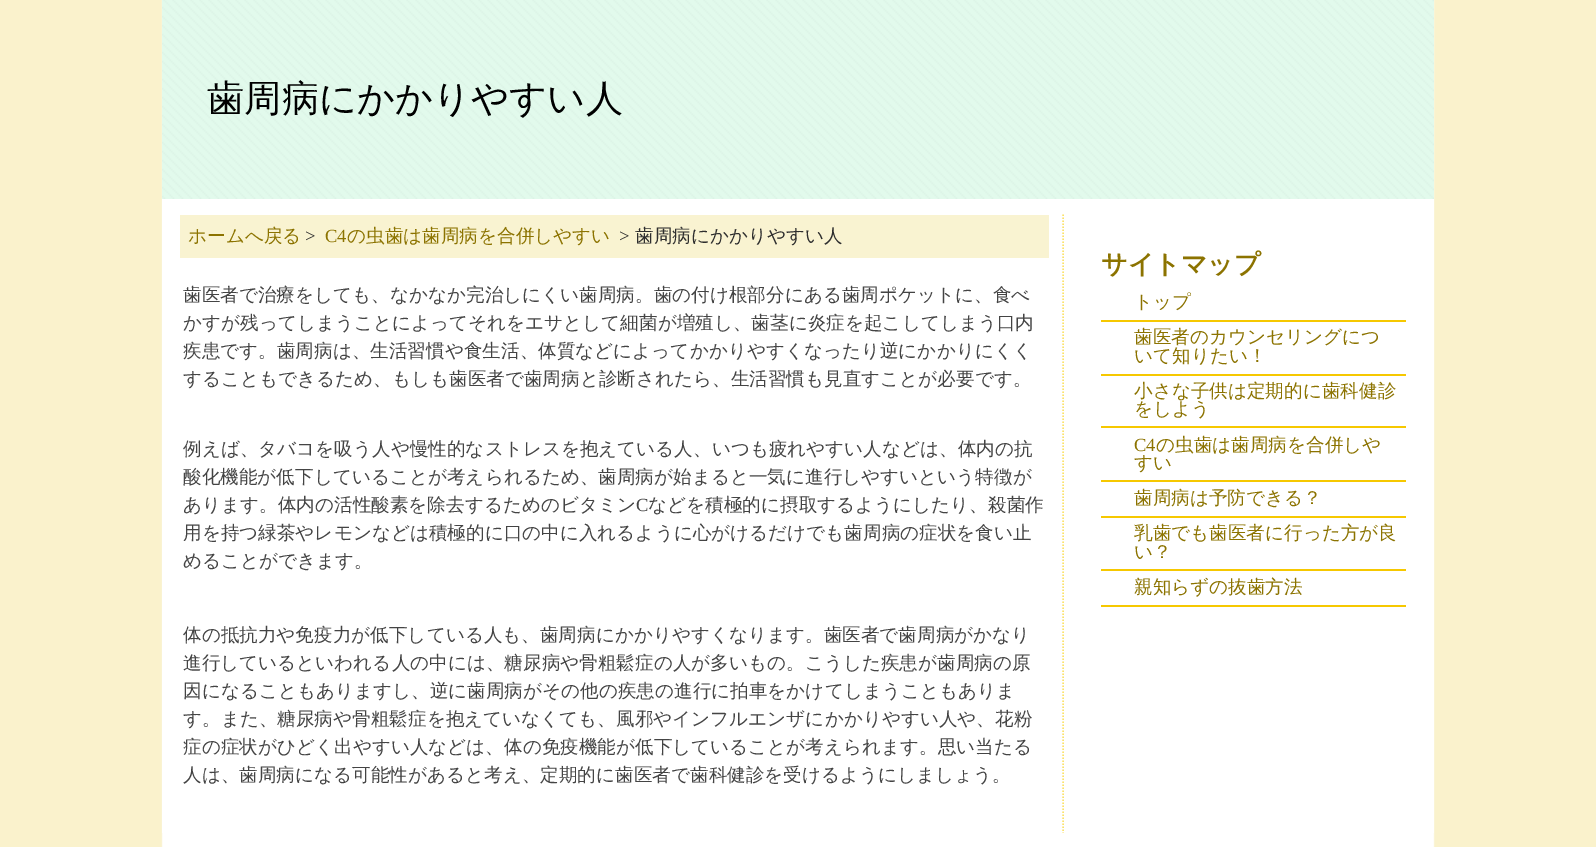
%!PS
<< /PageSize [1596 847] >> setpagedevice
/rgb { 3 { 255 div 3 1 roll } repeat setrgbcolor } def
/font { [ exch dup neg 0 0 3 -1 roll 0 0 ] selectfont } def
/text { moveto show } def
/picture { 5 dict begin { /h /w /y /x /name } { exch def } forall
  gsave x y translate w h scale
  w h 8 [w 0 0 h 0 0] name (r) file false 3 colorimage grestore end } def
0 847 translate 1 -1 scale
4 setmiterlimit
255 255 255 rgb
0 0 1596 847 rectfill
(img_01.rgb) 0 0 1596 847 picture
162 199 1272 634 rectfill
(img_02.rgb) 162 0 1272 199 picture
249 243 209 rgb
180 215 869 43 rectfill
gsave
162 0 1272 833 rectclip
252 226 105 rgb
1.5 setlinewidth
[1.5 1.5] 0 setdash
1063 214.5 moveto 0 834 rlineto stroke
grestore
246 200 0 rgb
1101 320 305 2 rectfill
1101 374 305 2 rectfill
1101 426 305 2 rectfill
1101 480 305 2 rectfill
1101 516 305 2 rectfill
1101 569 305 2 rectfill
1101 605 305 2 rectfill
/WenQuanYiZenHei-Medium 37.25 font
0 0 0 rgb
(歯周病にかかりやすい人) 207 111 text
/WenQuanYiZenHei-Medium 18.6 font
140 115 0 rgb
(ホームへ戻る) 188 242 text
/LiberationSerif-Regular 18.6 font
46 46 46 rgb
(>) 305 242 text
140 115 0 rgb
(C4) 325 242 text
/WenQuanYiZenHei-Medium 18.6 font
(の虫歯は歯周病を合併しやすい) 347 242 text
/LiberationSerif-Regular 18.6 font
46 46 46 rgb
(>) 619 242 text
/WenQuanYiZenHei-Medium 18.6 font
(歯周病にかかりやすい人) 635 242 text
68 68 68 rgb
(歯医者で治療をしても、なかなか完治しにくい歯周病。歯の付け根部分にある歯周ポケットに、食べ) 183 301 text
(かすが残ってしまうことによってそれをエサとして細菌が増殖し、歯茎に炎症を起こしてしまう口内) 183 329 text
(疾患です。歯周病は、生活習慣や食生活、体質などによってかかりやすくなったり逆にかかりにくく) 183 357 text
(することもできるため、もしも歯医者で歯周病と診断されたら、生活習慣も見直すことが必要です。) 183 385 text
/WenQuanYiZenHei-Bold 26 font
140 115 0 rgb
(サイトマップ) 1101 273 text
/WenQuanYiZenHei-Medium 18.6 font
(トップ) 1134 308 text
(歯医者のカウンセリングにつ) 1134 343 text
(いて知りたい！) 1134 362 text
(小さな子供は定期的に歯科健診) 1134 397 text
(をしよう) 1134 415 text
/LiberationSerif-Regular 18.6 font
(C4) 1134 451 text
/WenQuanYiZenHei-Medium 18.6 font
(の虫歯は歯周病を合併しや) 1156 451 text
(すい) 1134 469 text
(歯周病は予防できる？) 1134 504 text
(乳歯でも歯医者に行った方が良) 1134 539 text
(い？) 1134 558 text
(親知らずの抜歯方法) 1134 593 text
68 68 68 rgb
(例えば、タバコを吸う人や慢性的なストレスを抱えている人、いつも疲れやすい人などは、体内の抗) 183 455 text
(酸化機能が低下していることが考えられるため、歯周病が始まると一気に進行しやすいという特徴が) 183 483 text
(あります。体内の活性酸素を除去するためのビタミン) 183 511 text
/LiberationSerif-Regular 18.6 font
(C) 636 511 text
/WenQuanYiZenHei-Medium 18.6 font
(などを積極的に摂取するようにしたり、殺菌作) 648 511 text
(用を持つ緑茶やレモンなどは積極的に口の中に入れるように心がけるだけでも歯周病の症状を食い止) 183 539 text
(めることができます。) 183 567 text
(体の抵抗力や免疫力が低下している人も、歯周病にかかりやすくなります。歯医者で歯周病がかなり) 183 641 text
(進行しているといわれる人の中には、糖尿病や骨粗鬆症の人が多いもの。こうした疾患が歯周病の原) 183 669 text
(因になることもありますし、逆に歯周病がその他の疾患の進行に拍車をかけてしまうこともありま) 183 697 text
(す。また、糖尿病や骨粗鬆症を抱えていなくても、風邪やインフルエンザにかかりやすい人や、花粉) 183 725 text
(症の症状がひどく出やすい人などは、体の免疫機能が低下していることが考えられます。思い当たる) 183 753 text
(人は、歯周病になる可能性があると考え、定期的に歯医者で歯科健診を受けるようにしましょう。) 183 781 text
showpage
